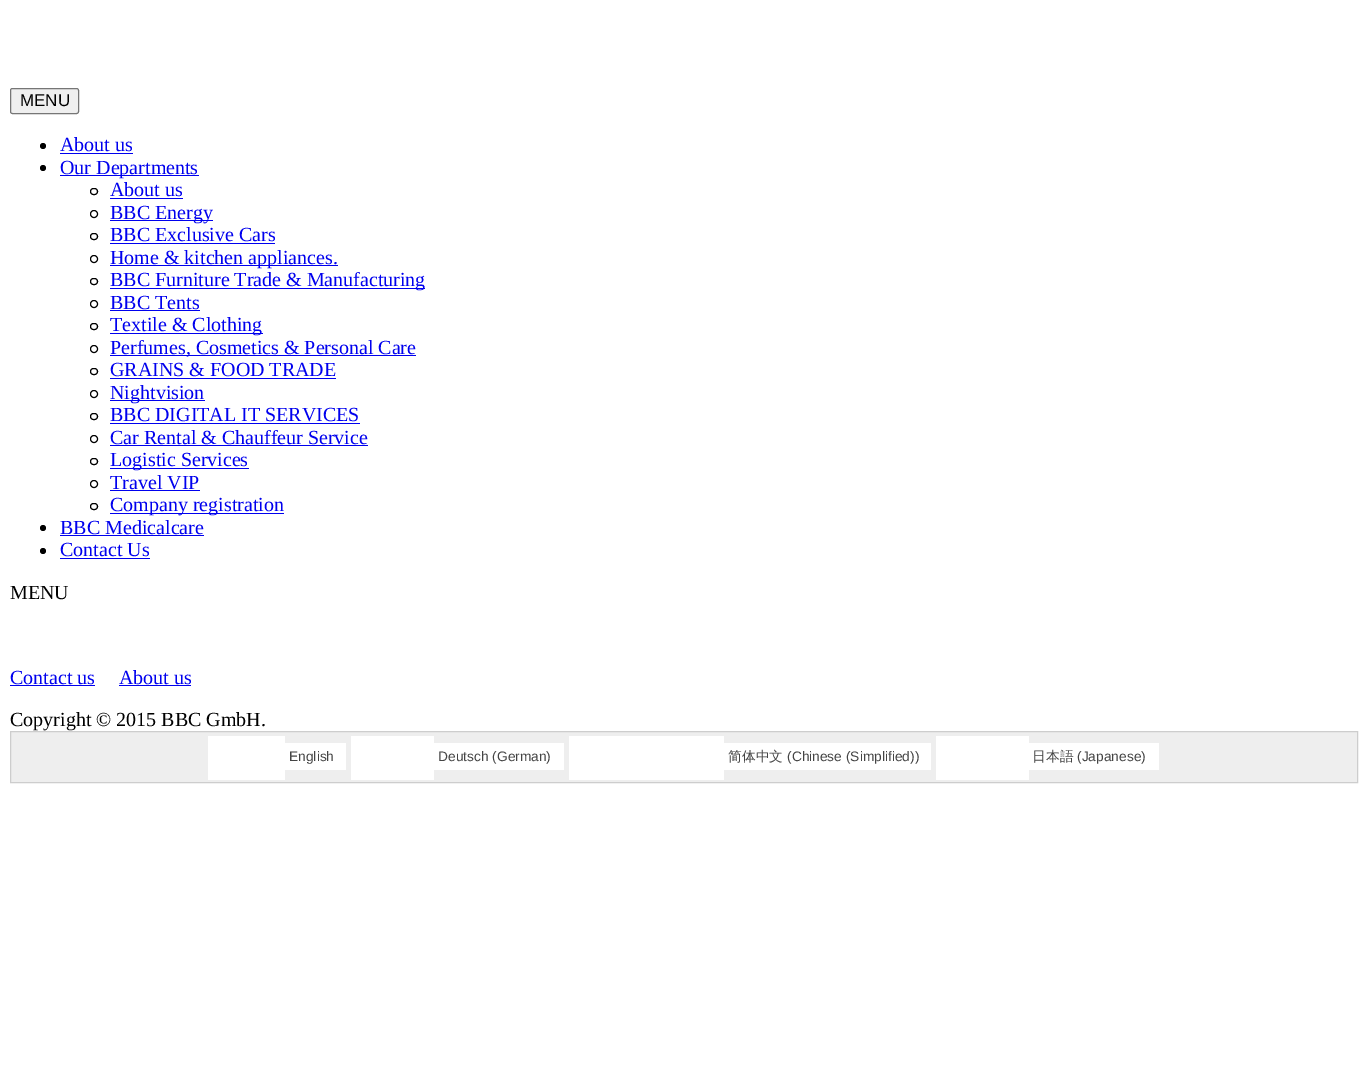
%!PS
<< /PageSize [1367 1092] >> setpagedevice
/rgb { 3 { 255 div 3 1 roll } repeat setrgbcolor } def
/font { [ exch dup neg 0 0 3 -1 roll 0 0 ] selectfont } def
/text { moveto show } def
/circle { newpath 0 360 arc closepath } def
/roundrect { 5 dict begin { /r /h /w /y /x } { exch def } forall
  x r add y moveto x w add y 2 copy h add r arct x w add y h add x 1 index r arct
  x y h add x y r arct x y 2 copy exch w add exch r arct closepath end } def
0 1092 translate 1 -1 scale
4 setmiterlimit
255 255 255 rgb
0 0 1367 1092 rectfill
239 239 239 rgb
10.5 88.5 68 25 2 roundrect gsave fill grestore
118 118 118 rgb
stroke
0 0 0 rgb
43 146 3 circle fill
0 0 238 rgb
60 153 73 1 rectfill
0 0 0 rgb
43 168 3 circle fill
0 0 238 rgb
60 175 139 1 rectfill
0 0 0 rgb
90.5 188.5 7 6 3 roundrect stroke
0 0 238 rgb
110 198 73 1 rectfill
0 0 0 rgb
94 214 3.5 circle stroke
0 0 238 rgb
110 220 103 1 rectfill
0 0 0 rgb
90.5 233.5 7 6 3 roundrect stroke
0 0 238 rgb
110 243 165 1 rectfill
0 0 0 rgb
94 259 3.5 circle stroke
0 0 238 rgb
110 265 228 1 rectfill
0 0 0 rgb
90.5 278.5 7 6 3 roundrect stroke
0 0 238 rgb
110 288 315 1 rectfill
0 0 0 rgb
94 304 3.5 circle stroke
0 0 238 rgb
110 310 90 1 rectfill
0 0 0 rgb
90.5 323.5 7 6 3 roundrect stroke
0 0 238 rgb
110 333 153 1 rectfill
0 0 0 rgb
94 349 3.5 circle stroke
0 0 238 rgb
110 355 306 1 rectfill
0 0 0 rgb
90.5 368.5 7 6 3 roundrect stroke
0 0 238 rgb
110 378 226 1 rectfill
0 0 0 rgb
94 394 3.5 circle stroke
0 0 238 rgb
110 400 95 1 rectfill
0 0 0 rgb
90.5 413.5 7 6 3 roundrect stroke
0 0 238 rgb
110 423 250 1 rectfill
0 0 0 rgb
94 439 3.5 circle stroke
0 0 238 rgb
110 445 258 1 rectfill
0 0 0 rgb
90.5 458.5 7 6 3 roundrect stroke
0 0 238 rgb
110 468 139 1 rectfill
0 0 0 rgb
94 484 3.5 circle stroke
0 0 238 rgb
110 490 90 1 rectfill
0 0 0 rgb
90.5 503.5 7 6 3 roundrect stroke
0 0 238 rgb
110 513 174 1 rectfill
0 0 0 rgb
43 528 3 circle fill
0 0 238 rgb
60 535 144 1 rectfill
0 0 0 rgb
43 551 3 circle fill
0 0 238 rgb
60 558 90 1 rectfill
10 685 85 1 rectfill
119 685 72 1 rectfill
238 238 238 rgb
10.5 731.5 moveto 1347 0 rlineto 0 51 rlineto -1347 0 rlineto closepath gsave fill grestore
205 205 205 rgb
stroke
255 255 255 rgb
208 736 77 44 rectfill
285 743 61 27 rectfill
351 736 83 44 rectfill
434 743 130 27 rectfill
569 736 155 44 rectfill
724 743 207 27 rectfill
936 736 93 44 rectfill
1029 743 130 27 rectfill
/LiberationSans-Regular 17 font
0 0 0 rgb
(MENU) 20 106 text
/LiberationSerif-Regular 20 font
0 0 238 rgb
(About us) 60 151 text
(Our Departments) 60 174 text
(About us) 110 196 text
(BBC Energy) 110 219 text
(BBC Exclusive Cars) 110 241 text
(Home & kitchen appliances.) 110 264 text
(BBC Furniture Trade & Manufacturing) 110 286 text
(BBC Tents) 110 309 text
(Textile & Clothing) 110 331 text
(Perfumes, Cosmetics & Personal Care) 110 354 text
(GRAINS & FOOD TRADE) 110 376 text
(Nightvision) 110 399 text
(BBC DIGITAL IT SERVICES) 110 421 text
(Car Rental & Chauffeur Service) 110 444 text
(Logistic Services) 110 466 text
(Travel VIP) 110 489 text
(Company registration) 110 511 text
(BBC Medicalcare) 60 534 text
(Contact Us) 60 556 text
0 0 0 rgb
(MENU) 10 599 text
0 0 238 rgb
(Contact us) 10 684 text
(About us) 119 684 text
0 0 0 rgb
(Copyright © 2015 BBC GmbH.) 10 726 text
/LiberationSans-Regular 13.75 font
68 68 68 rgb
(English) 289 761 text
(Deutsch \(German\)) 438 761 text
/WenQuanYiZenHei-Medium 13.75 font
(简体中文) 728 761 text
/LiberationSans-Regular 13.75 font
(\(Chinese \(Simplified\)\)) 787 761 text
/WenQuanYiZenHei-Medium 13.75 font
(日本語) 1032 761 text
/LiberationSans-Regular 13.75 font
(\(Japanese\)) 1077 761 text
showpage
